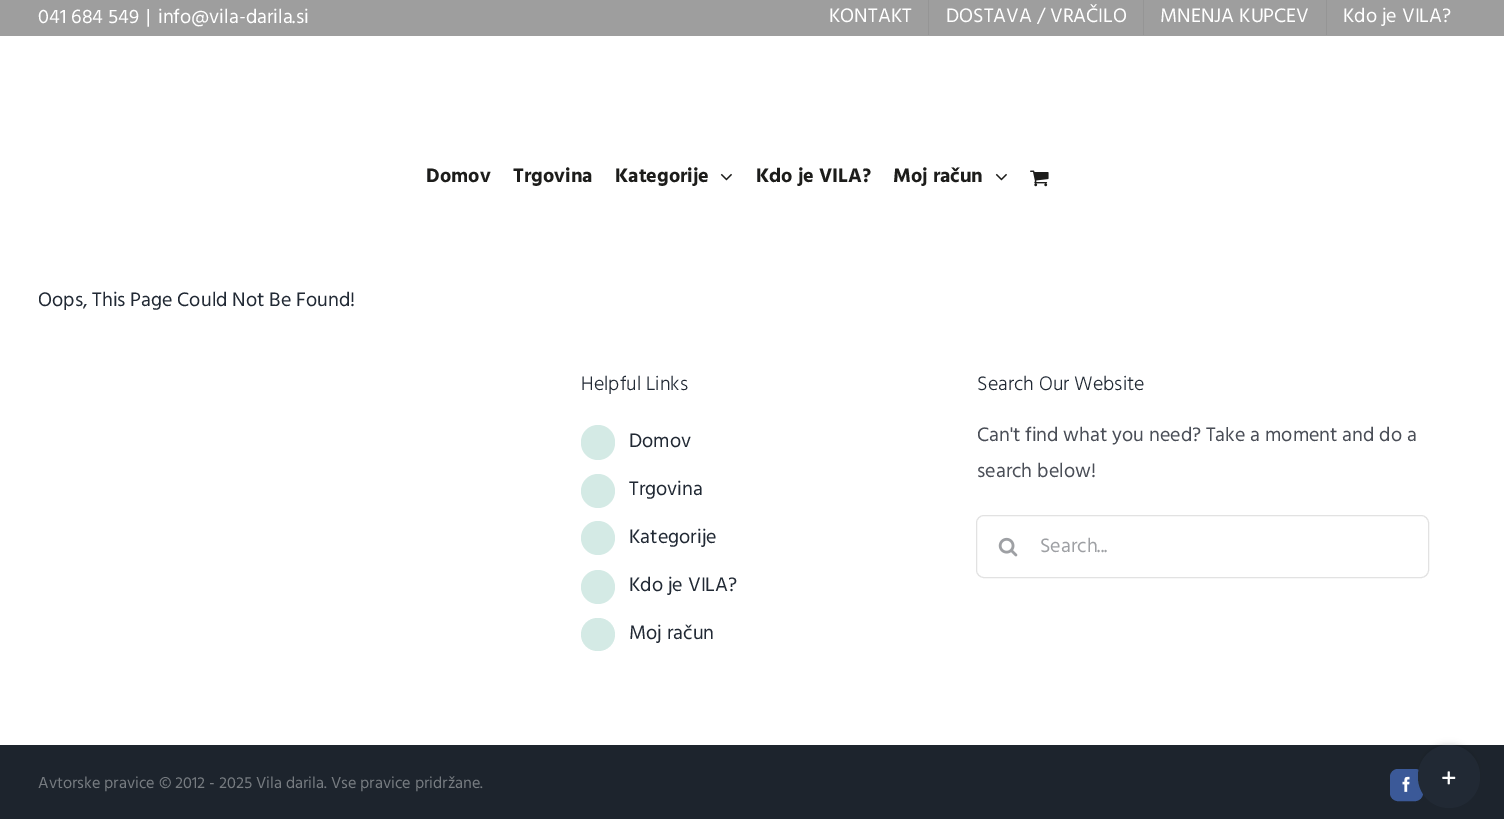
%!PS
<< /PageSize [1504 819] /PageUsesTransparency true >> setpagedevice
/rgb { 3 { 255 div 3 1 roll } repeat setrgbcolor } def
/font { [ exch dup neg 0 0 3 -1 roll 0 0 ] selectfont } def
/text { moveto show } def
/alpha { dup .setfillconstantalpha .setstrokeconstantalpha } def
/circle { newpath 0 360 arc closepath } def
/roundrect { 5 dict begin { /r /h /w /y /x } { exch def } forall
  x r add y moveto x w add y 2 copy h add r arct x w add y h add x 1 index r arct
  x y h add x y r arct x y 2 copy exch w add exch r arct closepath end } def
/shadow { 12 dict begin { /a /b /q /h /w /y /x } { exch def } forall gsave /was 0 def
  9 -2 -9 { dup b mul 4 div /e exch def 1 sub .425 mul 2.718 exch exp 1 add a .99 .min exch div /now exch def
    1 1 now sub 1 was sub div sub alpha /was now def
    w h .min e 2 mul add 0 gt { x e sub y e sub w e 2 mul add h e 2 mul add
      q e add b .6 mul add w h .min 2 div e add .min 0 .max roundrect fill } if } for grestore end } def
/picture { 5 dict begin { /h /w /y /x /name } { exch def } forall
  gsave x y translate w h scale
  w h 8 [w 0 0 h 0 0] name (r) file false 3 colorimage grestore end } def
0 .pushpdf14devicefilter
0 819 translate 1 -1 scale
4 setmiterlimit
255 255 255 rgb
0 0 1504 819 rectfill
158 158 158 rgb
0 0 1504 36 rectfill
149 149 149 rgb
928 0 1 35 rectfill
1143 0 1 35 rectfill
1326 0 1 35 rectfill
(img_01.rgb) 720 173 12 8 picture
(img_01.rgb) 995 173 12 8 picture
(img_02.rgb) 1030 170 19 17 picture
212 234 229 rgb
581 425 34 35 17 roundrect fill
598 491 17 circle fill
598 538 17 circle fill
598 587 17 circle fill
581 618 34 33 16.5 roundrect fill
226 226 226 rgb
976.5 515.5 452 62 7.5 roundrect stroke
(img_03.rgb) 998 537 20 20 picture
29 36 45 rgb
0 745 1504 74 rectfill
59 89 152 rgb
1390.5 769.5 32 31 7.5 roundrect gsave fill grestore
stroke
(img_04.rgb) 1402 776 8 16 picture
0 0 0 rgb
1420 744 58 57 28.5 3 0.14 shadow
33 41 52 rgb
1418 745 62 63 31 roundrect fill
(img_05.rgb) 1442 771 14 14 picture
/Hind-Regular 20 font
255 255 255 rgb
(041 684 549) 38 23 text
(|) 146 23 text
(info@vila-darila.si) 158 23 text
(KONTAKT) 829 22 text
(DOSTAVA / VRAČILO) 946 22 text
(MNENJA KUPCEV) 1160 22 text
(Kdo je VILA?) 1343 22 text
/Hind-Bold 20 font
29 29 27 rgb
(Domov) 426 182 text
(Trgovina) 513 182 text
(Kategorije) 615 182 text
(Kdo je VILA?) 756 182 text
(Moj račun) 893 182 text
/Hind-Regular 20 font
33 41 52 rgb
(Oops, This Page Could Not Be Found!) 38 306 text
/Hind-Light 20 font
(Helpful Links) 581 390 text
/Hind-Regular 20 font
(Domov) 629 447 text
(Trgovina) 629 495 text
(Kategorije) 629 543 text
(Kdo je VILA?) 629 591 text
(Moj račun) 629 639 text
/Hind-Light 20 font
(Search Our Website) 977 390 text
/Hind-Regular 20 font
74 78 87 rgb
(Can't find what you need? Take a moment and do a) 977 441 text
(search below!) 977 477 text
158 160 164 rgb
(Search...) 1040 552 text
/Hind-Regular 16.25 font
119 124 129 rgb
(Avtorske pravice © 2012 - 2025 Vila darila. Vse pravice pridržane.) 38 788 text
.poppdf14devicefilter showpage
